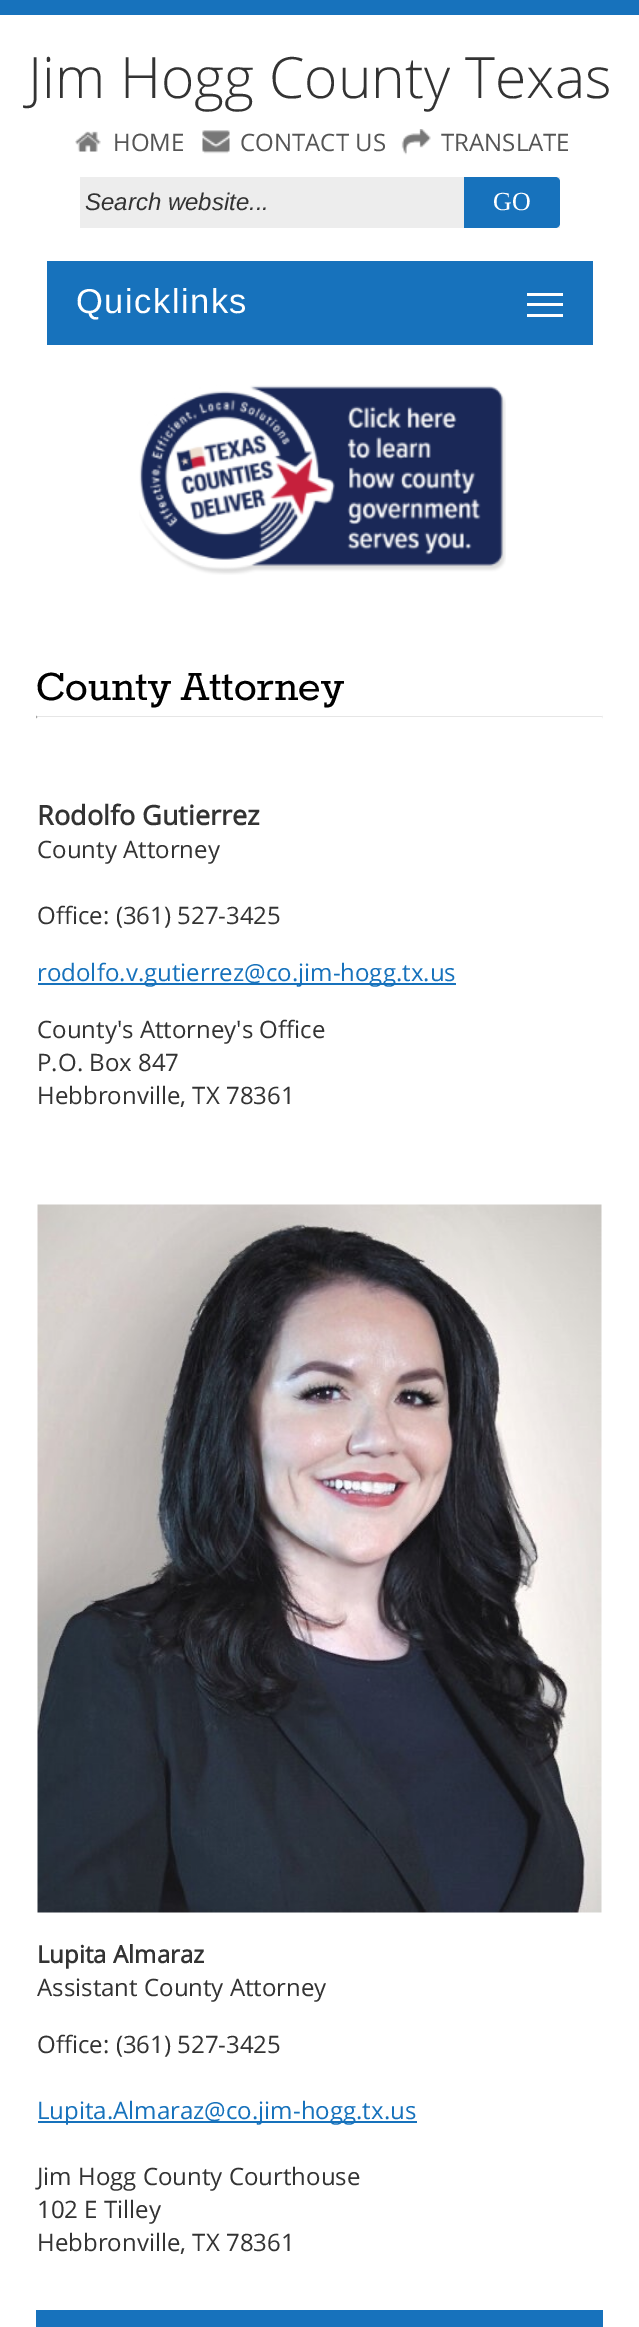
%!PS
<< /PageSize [639 2327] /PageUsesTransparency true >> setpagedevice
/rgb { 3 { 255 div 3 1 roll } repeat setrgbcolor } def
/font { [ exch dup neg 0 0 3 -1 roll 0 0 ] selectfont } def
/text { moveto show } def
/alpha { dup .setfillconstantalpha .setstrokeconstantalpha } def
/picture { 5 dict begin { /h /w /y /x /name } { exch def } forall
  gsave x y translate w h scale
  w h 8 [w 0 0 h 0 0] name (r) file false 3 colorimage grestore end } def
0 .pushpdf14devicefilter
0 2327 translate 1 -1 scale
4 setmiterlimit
255 255 255 rgb
0 0 639 2327 rectfill
23 114 188 rgb
0 0 639 15 rectfill
(img_01.rgb) 75 131 26 21 picture
(img_02.rgb) 202 130 28 24 picture
(img_03.rgb) 401 129 30 26 picture
237 237 237 rgb
80 177 480 51 rectfill
23 114 188 rgb
464 177 moveto 91 0 rlineto 3 0 5 2 5 5 rcurveto 0 41 rlineto 0 3 -2 5 -5 5 rcurveto -91 0 rlineto closepath fill
47 261 546 84 rectfill
255 255 255 rgb
527 303 36 3 rectfill
527 293 36 3 rectfill
527 314 36 3 rectfill
(img_04.rgb) 139 385 367 190 picture
230 230 230 rgb
36 716 moveto 567 0 rlineto -1 1 rlineto -564 0 rlineto closepath fill
238 238 238 rgb
603 715.5 moveto 0 3 rlineto -1.5 -1.5 rlineto closepath fill
0.4 alpha
255 255 255 rgb
603 718 moveto -567 0 rlineto 2 -1 rlineto 564 0 rlineto closepath fill
1 alpha
159 159 159 rgb
36 718.5 moveto 0 -3 rlineto 1.5 1.5 rlineto closepath fill
23 114 188 rgb
38 983 418 2 rectfill
(img_05.rgb) 37 1204 565 709 picture
38 2121 379 2 rectfill
36 2310 567 17 rectfill
/OpenSans-Light 57 font
51 51 51 rgb
(Jim Hogg County Texas) 28 98 text
/OpenSans-Regular 24 font
85 85 85 rgb
(HOME) 113 151 text
(CONTACT US) 240 151 text
(TRANSLATE) 441 151 text
/LiberationSans-Italic 24 font
51 51 51 rgb
(Search website...) 85 210 text
/LiberationSerif-Regular 26 font
255 255 255 rgb
(GO) 493 210 text
/LiberationSans-Regular 34.5 font
76 313 moveto 1.5 0 (Quicklinks) ashow
/Rokkitt-Regular 48 font
0 0 0 rgb
(County Attorney) 36 700 text
/OpenSans-Bold 27 font
51 51 51 rgb
(Rodolfo Gutierrez) 37 825 text
/OpenSans-Regular 24 font
(County Attorney) 37 858 text
(Office: \(361\) 527-3425) 37 924 text
23 114 188 rgb
(rodolfo.v.gutierrez@co.jim-hogg.tx.us) 37 981 text
51 51 51 rgb
(County's Attorney's Office) 37 1038 text
(P.O. Box 847) 37 1071 text
(Hebbronville, TX 78361) 37 1104 text
/OpenSans-Bold 24 font
(Lupita Almaraz) 37 1963 text
/OpenSans-Regular 24 font
(Assistant County Attorney) 37 1996 text
(Office: \(361\) 527-3425) 37 2053 text
23 114 188 rgb
(Lupita.Almaraz@co.jim-hogg.tx.us) 37 2119 text
51 51 51 rgb
(Jim Hogg County Courthouse) 37 2185 text
(102 E Tilley) 37 2218 text
(Hebbronville, TX 78361) 37 2251 text
.poppdf14devicefilter showpage
